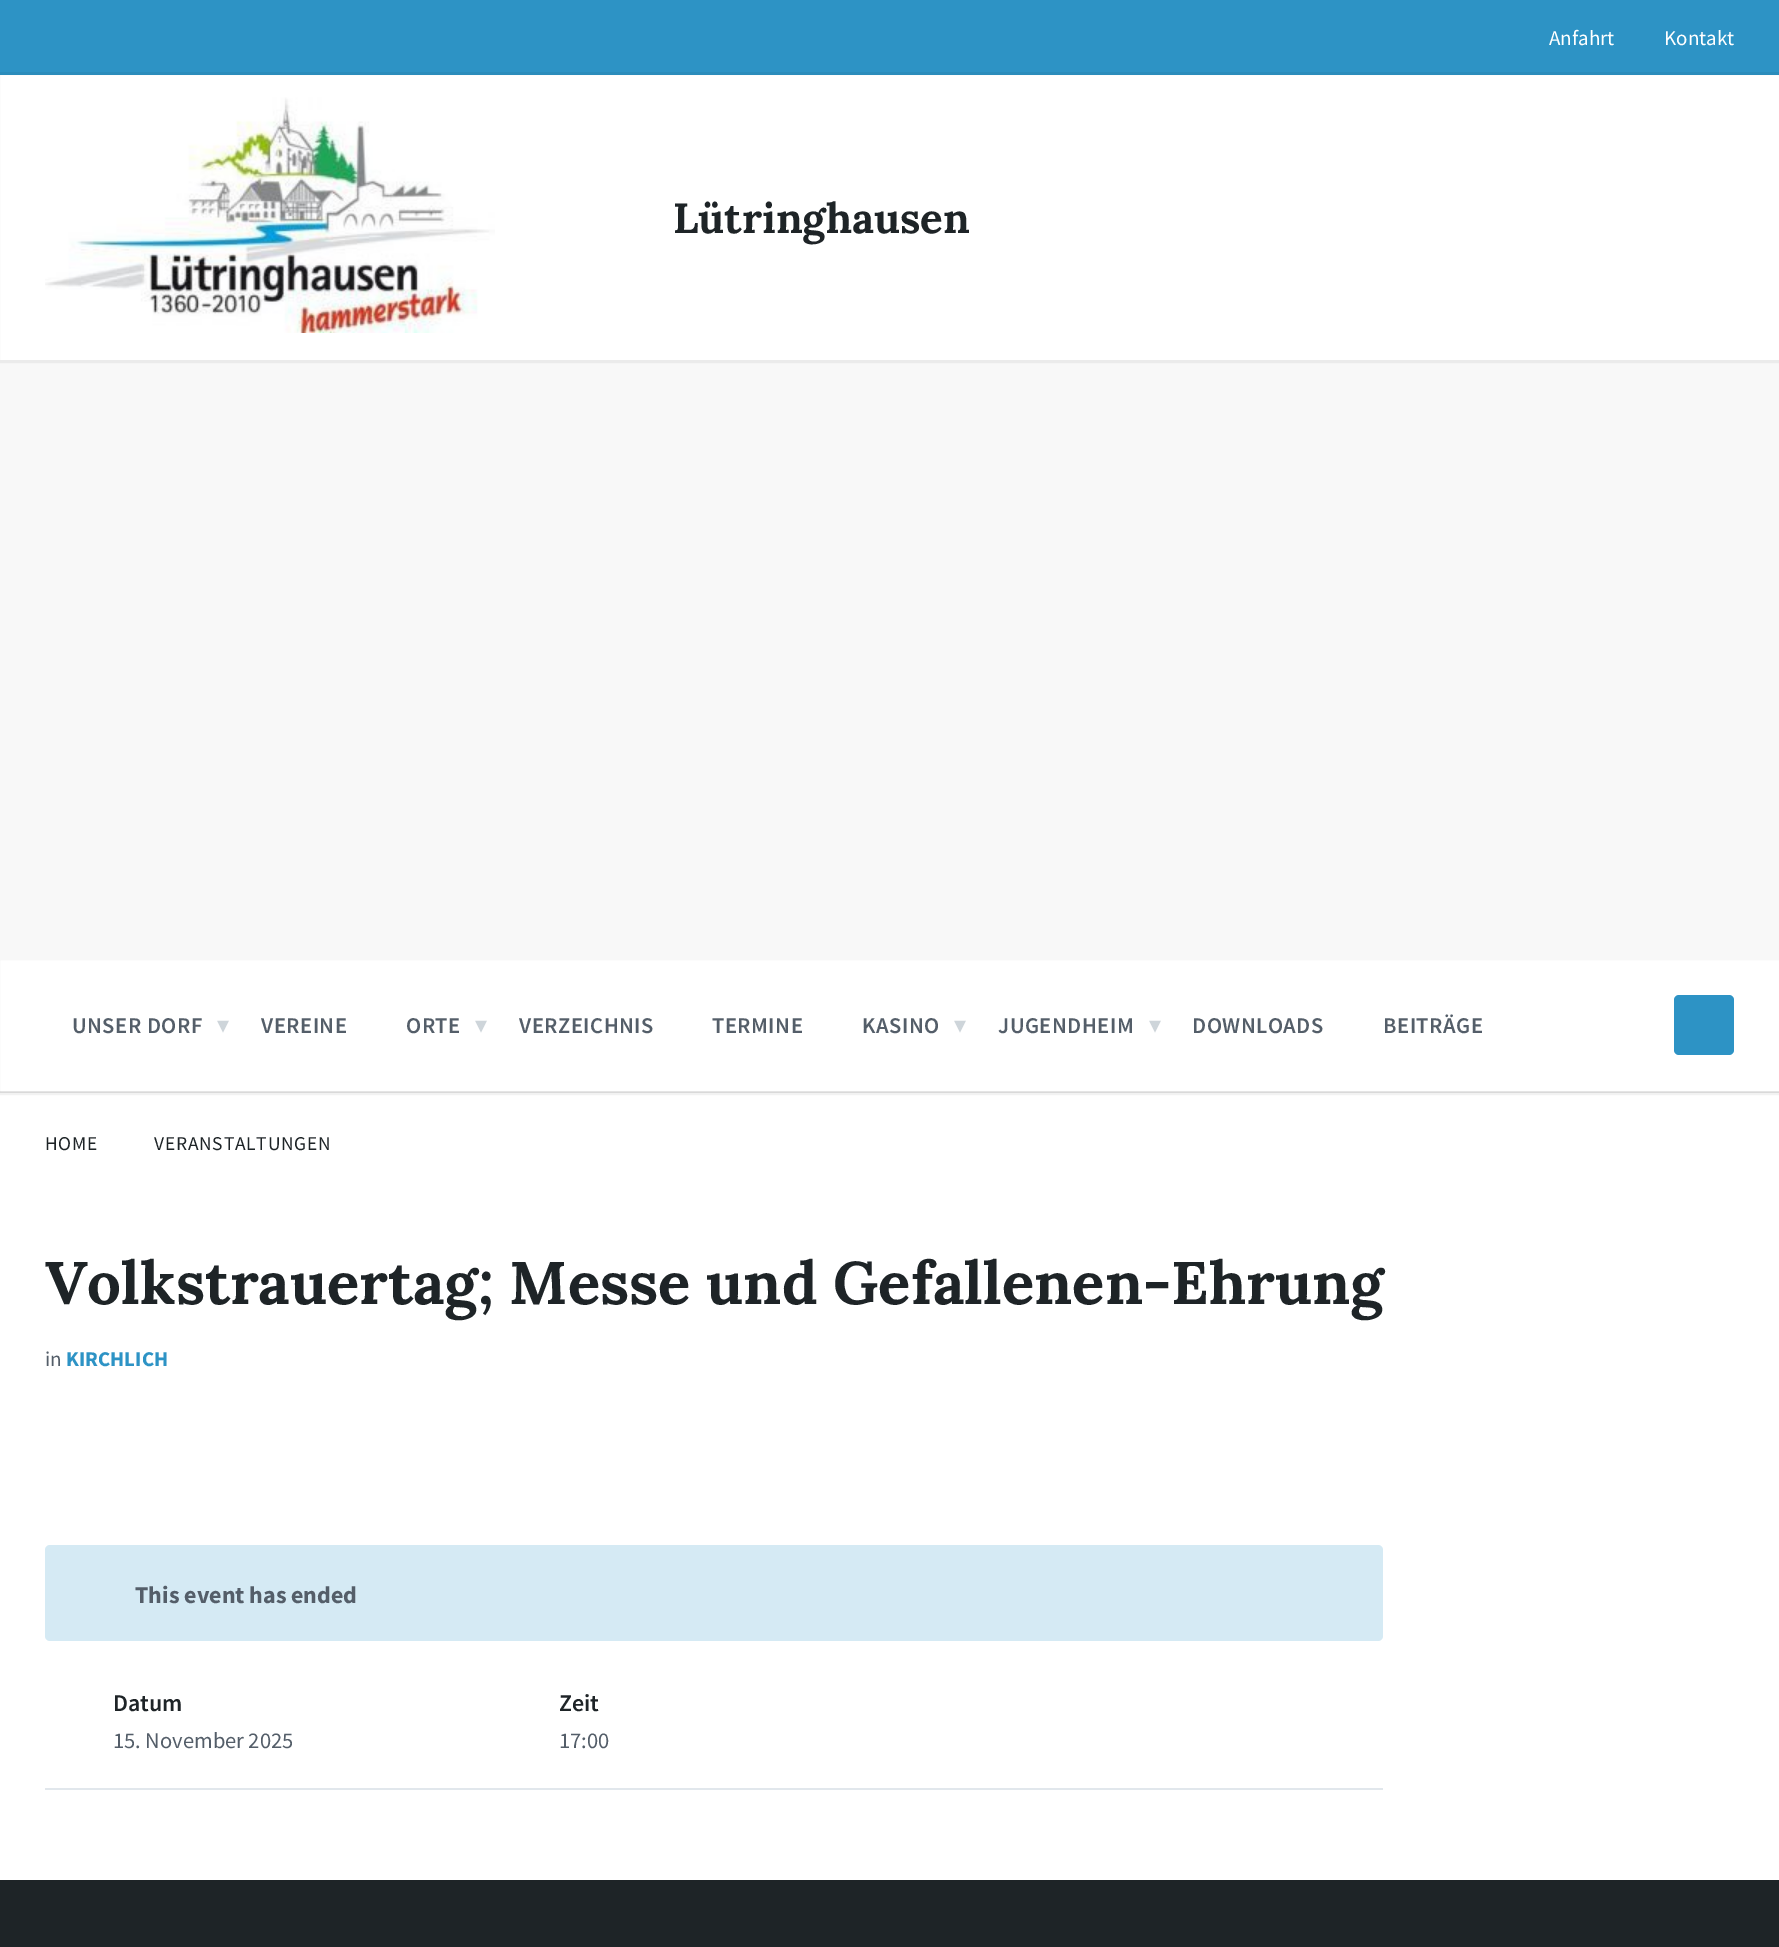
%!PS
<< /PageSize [1779 1947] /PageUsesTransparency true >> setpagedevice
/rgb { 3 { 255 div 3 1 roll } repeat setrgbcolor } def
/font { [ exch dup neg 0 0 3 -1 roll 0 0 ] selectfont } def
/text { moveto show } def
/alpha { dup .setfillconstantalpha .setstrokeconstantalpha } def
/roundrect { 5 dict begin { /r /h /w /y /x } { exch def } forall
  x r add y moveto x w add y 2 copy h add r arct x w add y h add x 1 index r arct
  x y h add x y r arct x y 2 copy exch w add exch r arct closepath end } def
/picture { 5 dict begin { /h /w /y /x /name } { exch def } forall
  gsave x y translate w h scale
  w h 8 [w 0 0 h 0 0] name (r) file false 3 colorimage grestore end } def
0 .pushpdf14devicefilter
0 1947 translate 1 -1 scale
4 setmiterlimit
255 255 255 rgb
0 0 1779 1947 rectfill
242 242 242 rgb
3 setlinewidth
-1.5 958.5 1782 135 rectstroke
248 248 248 rgb
0 360 1779 600 rectfill
45 147 197 rgb
0 0 1779 75 rectfill
0.05 alpha
0 0 0 rgb
-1.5 73.5 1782 288 rectstroke
1 alpha
(img_01.rgb) 45 97 450 236 picture
0.1 alpha
0 1091 1779 2 rectfill
1 alpha
45 147 197 rgb
1674 995 60 60 5 roundrect fill
213 234 244 rgb
45 1545 1338 96 5 roundrect fill
225 231 236 rgb
45 1788 1338 2 rectfill
30 36 39 rgb
0 1880 1779 67 rectfill
/SourceSansPro-Regular 21 font
255 255 255 rgb
(Anfahrt) 1549 45 text
(Kontakt) 1664 45 text
/Lora-Bold 42 font
30 36 39 rgb
(Lütringhausen) 673 233 text
/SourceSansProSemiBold-SemiBold 22.5 font
84 94 105 rgb
72 1033 moveto 0.5 0 (UNSER DORF) ashow
/DejaVuSans-Regular 24 font
206 213 218 rgb
(▾) 217 1033 text
/SourceSansProSemiBold-SemiBold 22.5 font
84 94 105 rgb
261 1033 moveto 0.5 0 (VEREINE) ashow
406 1033 moveto 0.5 0 (ORTE) ashow
/DejaVuSans-Regular 24 font
206 213 218 rgb
(▾) 475 1033 text
/SourceSansProSemiBold-SemiBold 22.5 font
84 94 105 rgb
519 1033 moveto 0.5 0 (VERZEICHNIS) ashow
712 1033 moveto 0.5 0 (TERMINE) ashow
862 1033 moveto 0.5 0 (KASINO) ashow
/DejaVuSans-Regular 24 font
206 213 218 rgb
(▾) 954 1033 text
/SourceSansProSemiBold-SemiBold 22.5 font
84 94 105 rgb
998 1033 moveto 0.5 0 (JUGENDHEIM) ashow
/DejaVuSans-Regular 24 font
206 213 218 rgb
(▾) 1149 1033 text
/SourceSansProSemiBold-SemiBold 22.5 font
84 94 105 rgb
1192 1033 moveto 0.5 0 (DOWNLOADS) ashow
1383 1033 moveto 0.5 0 (BEITRÄGE) ashow
/SourceSansPro-Regular 19.5 font
30 36 39 rgb
45 1150 moveto 0.75 0 (HOME) ashow
154 1150 moveto 0.75 0 (VERANSTALTUNGEN) ashow
/Lora-Bold 60 font
(Volkstrauertag; Messe und Gefallenen-Ehrung) 45 1304 text
/SourceSansPro-Regular 21 font
84 94 105 rgb
(in) 45 1366 text
/SourceSansPro-Bold 21 font
45 147 197 rgb
(KIRCHLICH) 66 1366 text
/SourceSansPro-Bold 24 font
84 94 105 rgb
(This event has ended) 135 1603 text
/SourceSansProSemiBold-SemiBold 24 font
30 36 39 rgb
(Datum) 113 1711 text
/SourceSansPro-Regular 22.5 font
84 94 105 rgb
(15. November 2025) 113 1748 text
/SourceSansProSemiBold-SemiBold 24 font
30 36 39 rgb
(Zeit) 559 1711 text
/SourceSansPro-Regular 22.5 font
84 94 105 rgb
(17:00) 559 1748 text
.poppdf14devicefilter showpage
